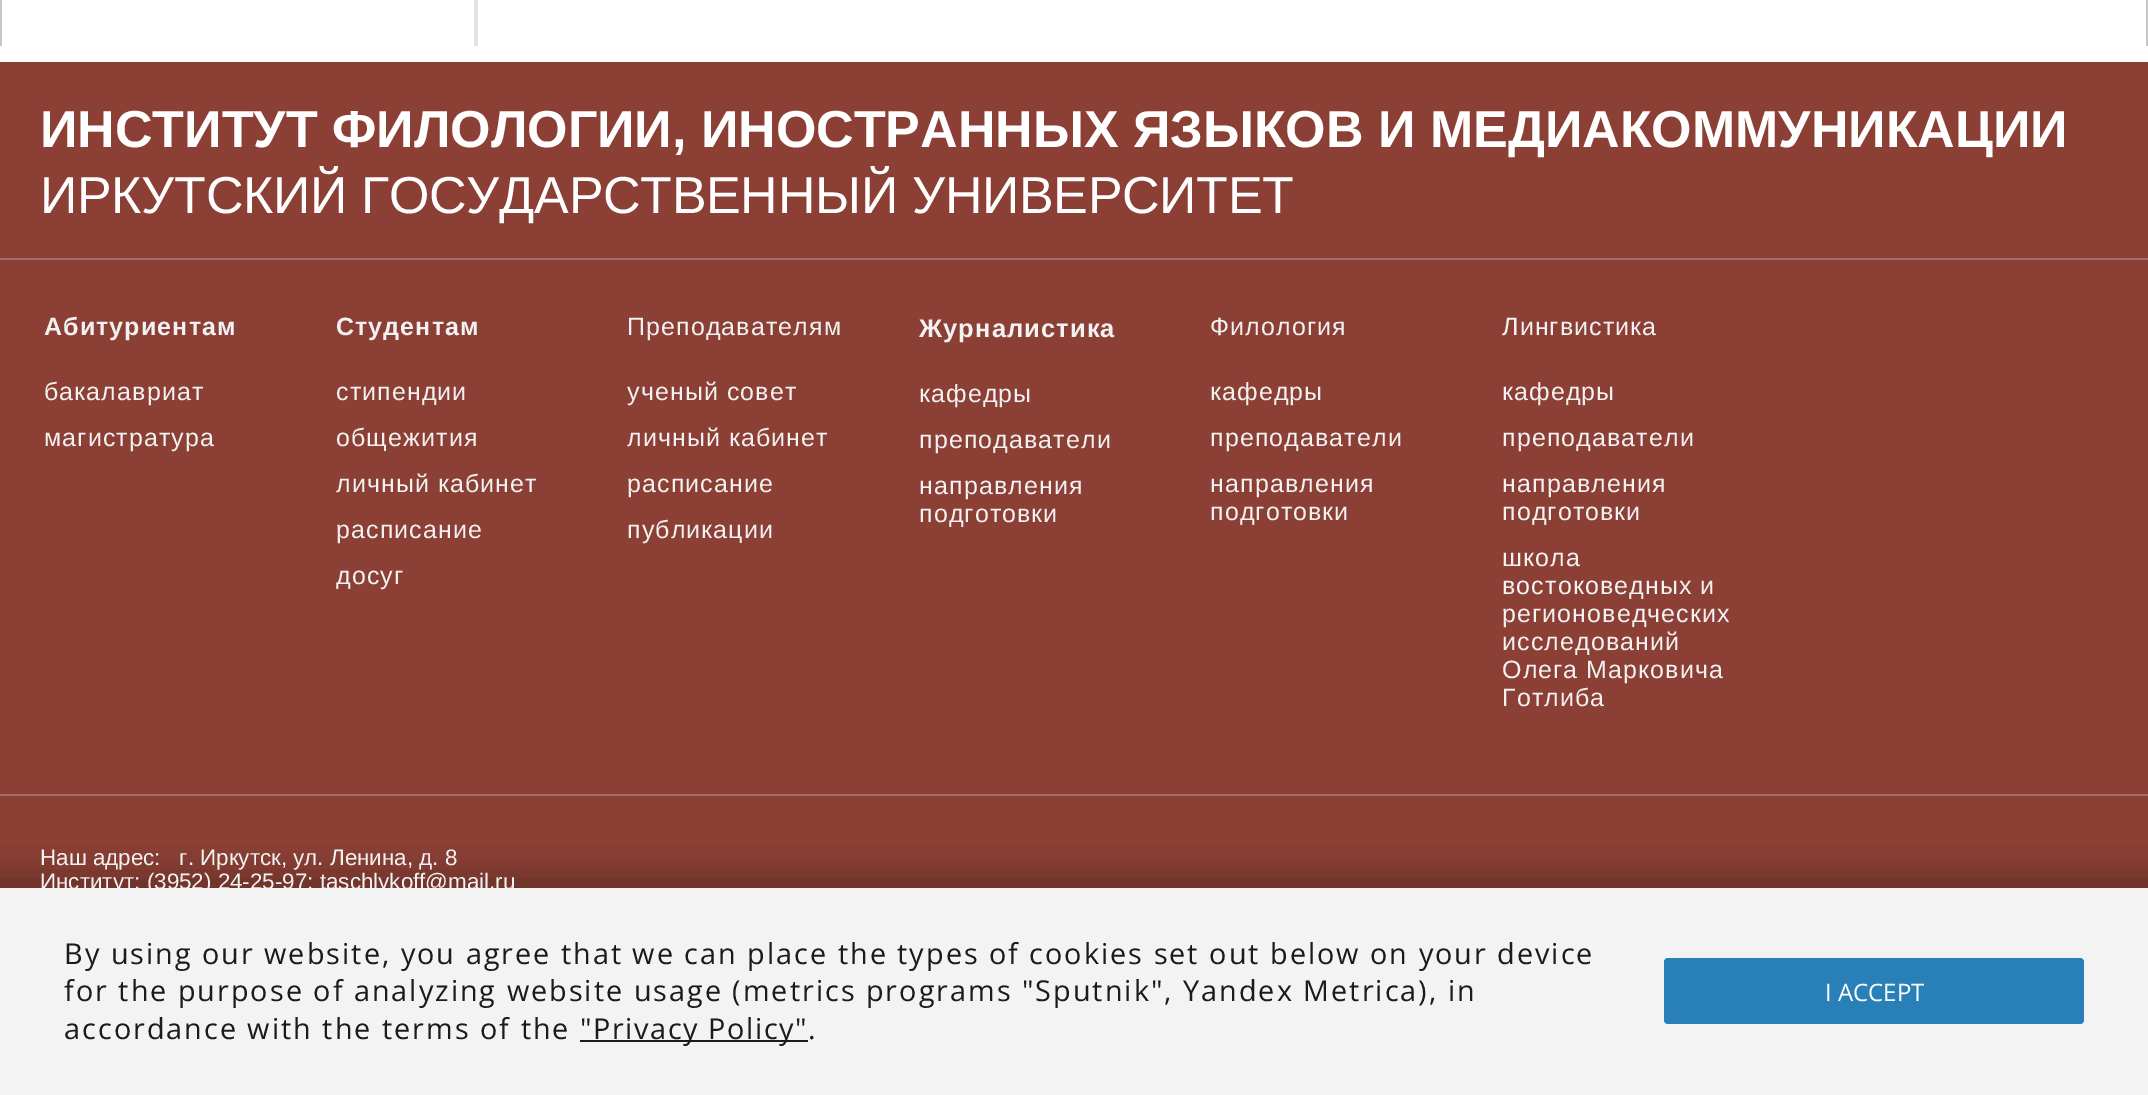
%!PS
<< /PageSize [2148 1095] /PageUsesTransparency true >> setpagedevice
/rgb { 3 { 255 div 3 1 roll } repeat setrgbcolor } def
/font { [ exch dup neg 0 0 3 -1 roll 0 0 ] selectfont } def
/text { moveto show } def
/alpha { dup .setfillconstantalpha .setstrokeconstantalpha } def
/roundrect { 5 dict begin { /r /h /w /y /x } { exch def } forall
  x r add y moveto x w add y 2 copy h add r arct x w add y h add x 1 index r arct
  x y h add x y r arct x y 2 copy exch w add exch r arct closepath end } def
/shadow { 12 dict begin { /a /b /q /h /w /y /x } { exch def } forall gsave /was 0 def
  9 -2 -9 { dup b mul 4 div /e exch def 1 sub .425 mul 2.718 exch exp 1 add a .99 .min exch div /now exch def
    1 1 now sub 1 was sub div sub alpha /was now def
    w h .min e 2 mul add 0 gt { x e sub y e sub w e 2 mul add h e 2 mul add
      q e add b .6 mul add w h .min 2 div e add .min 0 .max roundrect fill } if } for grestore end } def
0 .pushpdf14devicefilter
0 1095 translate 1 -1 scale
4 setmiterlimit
255 255 255 rgb
0 0 2148 1095 rectfill
199 199 199 rgb
2146 0 2 46 rectfill
0 0 2 46 rectfill
227 227 227 rgb
474 0 4 46 rectfill
140 63 53 rgb
0 62 2148 826 rectfill
161 112 106 rgb
0 258 2148 2 rectfill
0 794 2148 2 rectfill
0 0 0 rgb
-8 874 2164 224 0 18 0.25 shadow
/LiberationSans-Bold 52 font
255 255 255 rgb
(ИНСТИТУТ ФИЛОЛОГИИ, ИНОСТРАННЫХ ЯЗЫКОВ И МЕДИАКОММУНИКАЦИИ) 40 147 text
/LiberationSans-Regular 52 font
40 213 moveto -0.3 0 (ИРКУТСКИЙ ГОСУДАРСТВЕННЫЙ УНИВЕРСИТЕТ) ashow
/LiberationSans-Bold 25 font
242 242 242 rgb
44 335 moveto 1.1 0 (Абитуриентам) ashow
/LiberationSans-Regular 25 font
44 400 moveto 1.1 0 (бакалавриат) ashow
44 446 moveto 1.1 0 (магистратура) ashow
/LiberationSans-Bold 25 font
336 335 moveto 1.1 0 (Студентам) ashow
/LiberationSans-Regular 25 font
336 400 moveto 1.1 0 (стипендии) ashow
336 446 moveto 1.1 0 (общежития) ashow
336 492 moveto 1.1 0 (личный кабинет) ashow
336 538 moveto 1.1 0 (расписание) ashow
336 584 moveto 1.1 0 (досуг) ashow
627 335 moveto 1.1 0 (Преподавателям) ashow
627 400 moveto 1.1 0 (ученый совет) ashow
627 446 moveto 1.1 0 (личный кабинет) ashow
627 492 moveto 1.1 0 (расписание) ashow
627 538 moveto 1.1 0 (публикации) ashow
/LiberationSans-Bold 25.5 font
919 337 moveto 1.1 0 (Журналистика) ashow
/LiberationSans-Regular 25 font
919 402 moveto 1.1 0 (кафедры) ashow
919 448 moveto 1.1 0 (преподаватели) ashow
919 494 moveto 1.1 0 (направления) ashow
919 522 moveto 1.1 0 (подготовки) ashow
1210 335 moveto 1.1 0 (Филология) ashow
1210 400 moveto 1.1 0 (кафедры) ashow
1210 446 moveto 1.1 0 (преподаватели) ashow
1210 492 moveto 1.1 0 (направления) ashow
1210 520 moveto 1.1 0 (подготовки) ashow
1502 335 moveto 1.1 0 (Лингвистика) ashow
1502 400 moveto 1.1 0 (кафедры) ashow
1502 446 moveto 1.1 0 (преподаватели) ashow
1502 492 moveto 1.1 0 (направления) ashow
1502 520 moveto 1.1 0 (подготовки) ashow
1502 566 moveto 1.1 0 (школа) ashow
1502 594 moveto 1.1 0 (востоковедных и) ashow
1502 622 moveto 1.1 0 (регионоведческих) ashow
1502 650 moveto 1.1 0 (исследований) ashow
1502 678 moveto 1.1 0 (Олега Марковича) ashow
1502 706 moveto 1.1 0 (Готлиба) ashow
/LiberationSans-Regular 22.4 font
(Наш адрес:   г. Иркутск, ул. Ленина, д. 8) 40 865 text
(Институт: \(3952\) 24-25-97; taschlykoff@mail.ru) 40 889 text
243 243 243 rgb
0 888 2148 207 rectfill
/OpenSans-Regular 28.8 font
27 27 27 rgb
64 964 moveto 2 0 (By using our website, you agree that we can place the types of cookies set out below on your device) ashow
64 1001 moveto 2 0 (for the purpose of analyzing website usage \(metrics programs "Sputnik", Yandex Metrica\), in) ashow
64 1039 moveto 2 0 (accordance with the terms of the) ashow
580 1040 228 2 rectfill
580 1039 moveto 1.6 0 ("Privacy Policy") ashow
808 1039 moveto 2 0 (.) ashow
41 128 185 rgb
1664 958 420 66 4 roundrect fill
/OpenSans-Regular 24 font
255 255 255 rgb
(I ACCEPT) 1825 1001 text
.poppdf14devicefilter showpage
